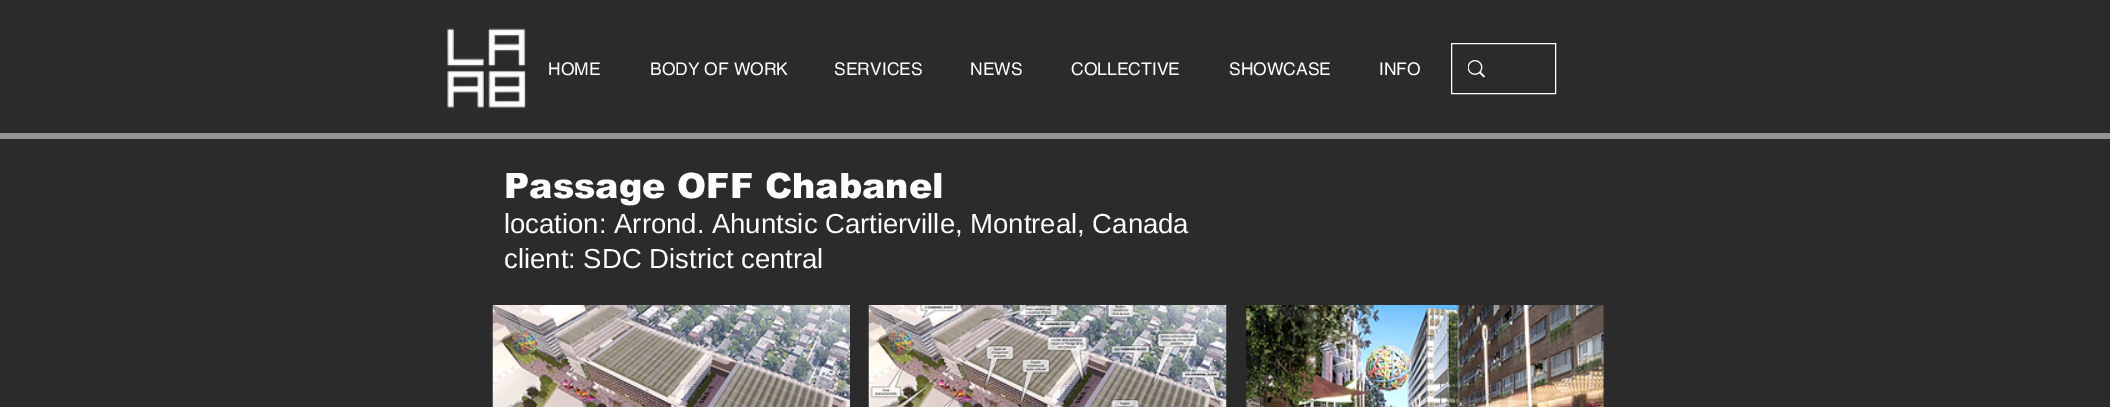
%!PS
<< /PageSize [2110 407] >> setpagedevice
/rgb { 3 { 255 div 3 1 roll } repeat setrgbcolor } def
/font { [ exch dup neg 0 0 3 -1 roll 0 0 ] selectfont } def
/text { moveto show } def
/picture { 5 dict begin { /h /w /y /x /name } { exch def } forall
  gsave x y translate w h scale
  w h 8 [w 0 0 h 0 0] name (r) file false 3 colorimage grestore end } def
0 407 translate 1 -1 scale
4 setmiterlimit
43 43 43 rgb
0 0 2110 407 rectfill
(img_01.rgb) 447 28 79 80 picture
255 255 255 rgb
1451.5 43.5 104 50 rectstroke
(img_02.rgb) 1468 60 17 18 picture
149 149 149 rgb
0 133 2110 6 rectfill
(img_03.rgb) 492 305 358 102 picture
(img_04.rgb) 868 305 359 102 picture
(img_05.rgb) 1246 305 358 102 picture
/helvetica-Regular 17.5 font
252 252 252 rgb
(HOME) 548 75 text
(BODY OF WORK) 650 75 text
(SERVICES) 834 75 text
(NEWS) 970 75 text
(COLLECTIVE) 1071 75 text
(SHOWCASE) 1229 75 text
(INFO) 1379 75 text
/arial-Black 35 font
(Passage OFF Chabanel) 504 198 text
/LiberationSans-Regular 27.5 font
(location: Arrond. Ahuntsic Cartierville, Montreal, Canada) 504 233 text
(client: SDC District central) 504 268 text
showpage
